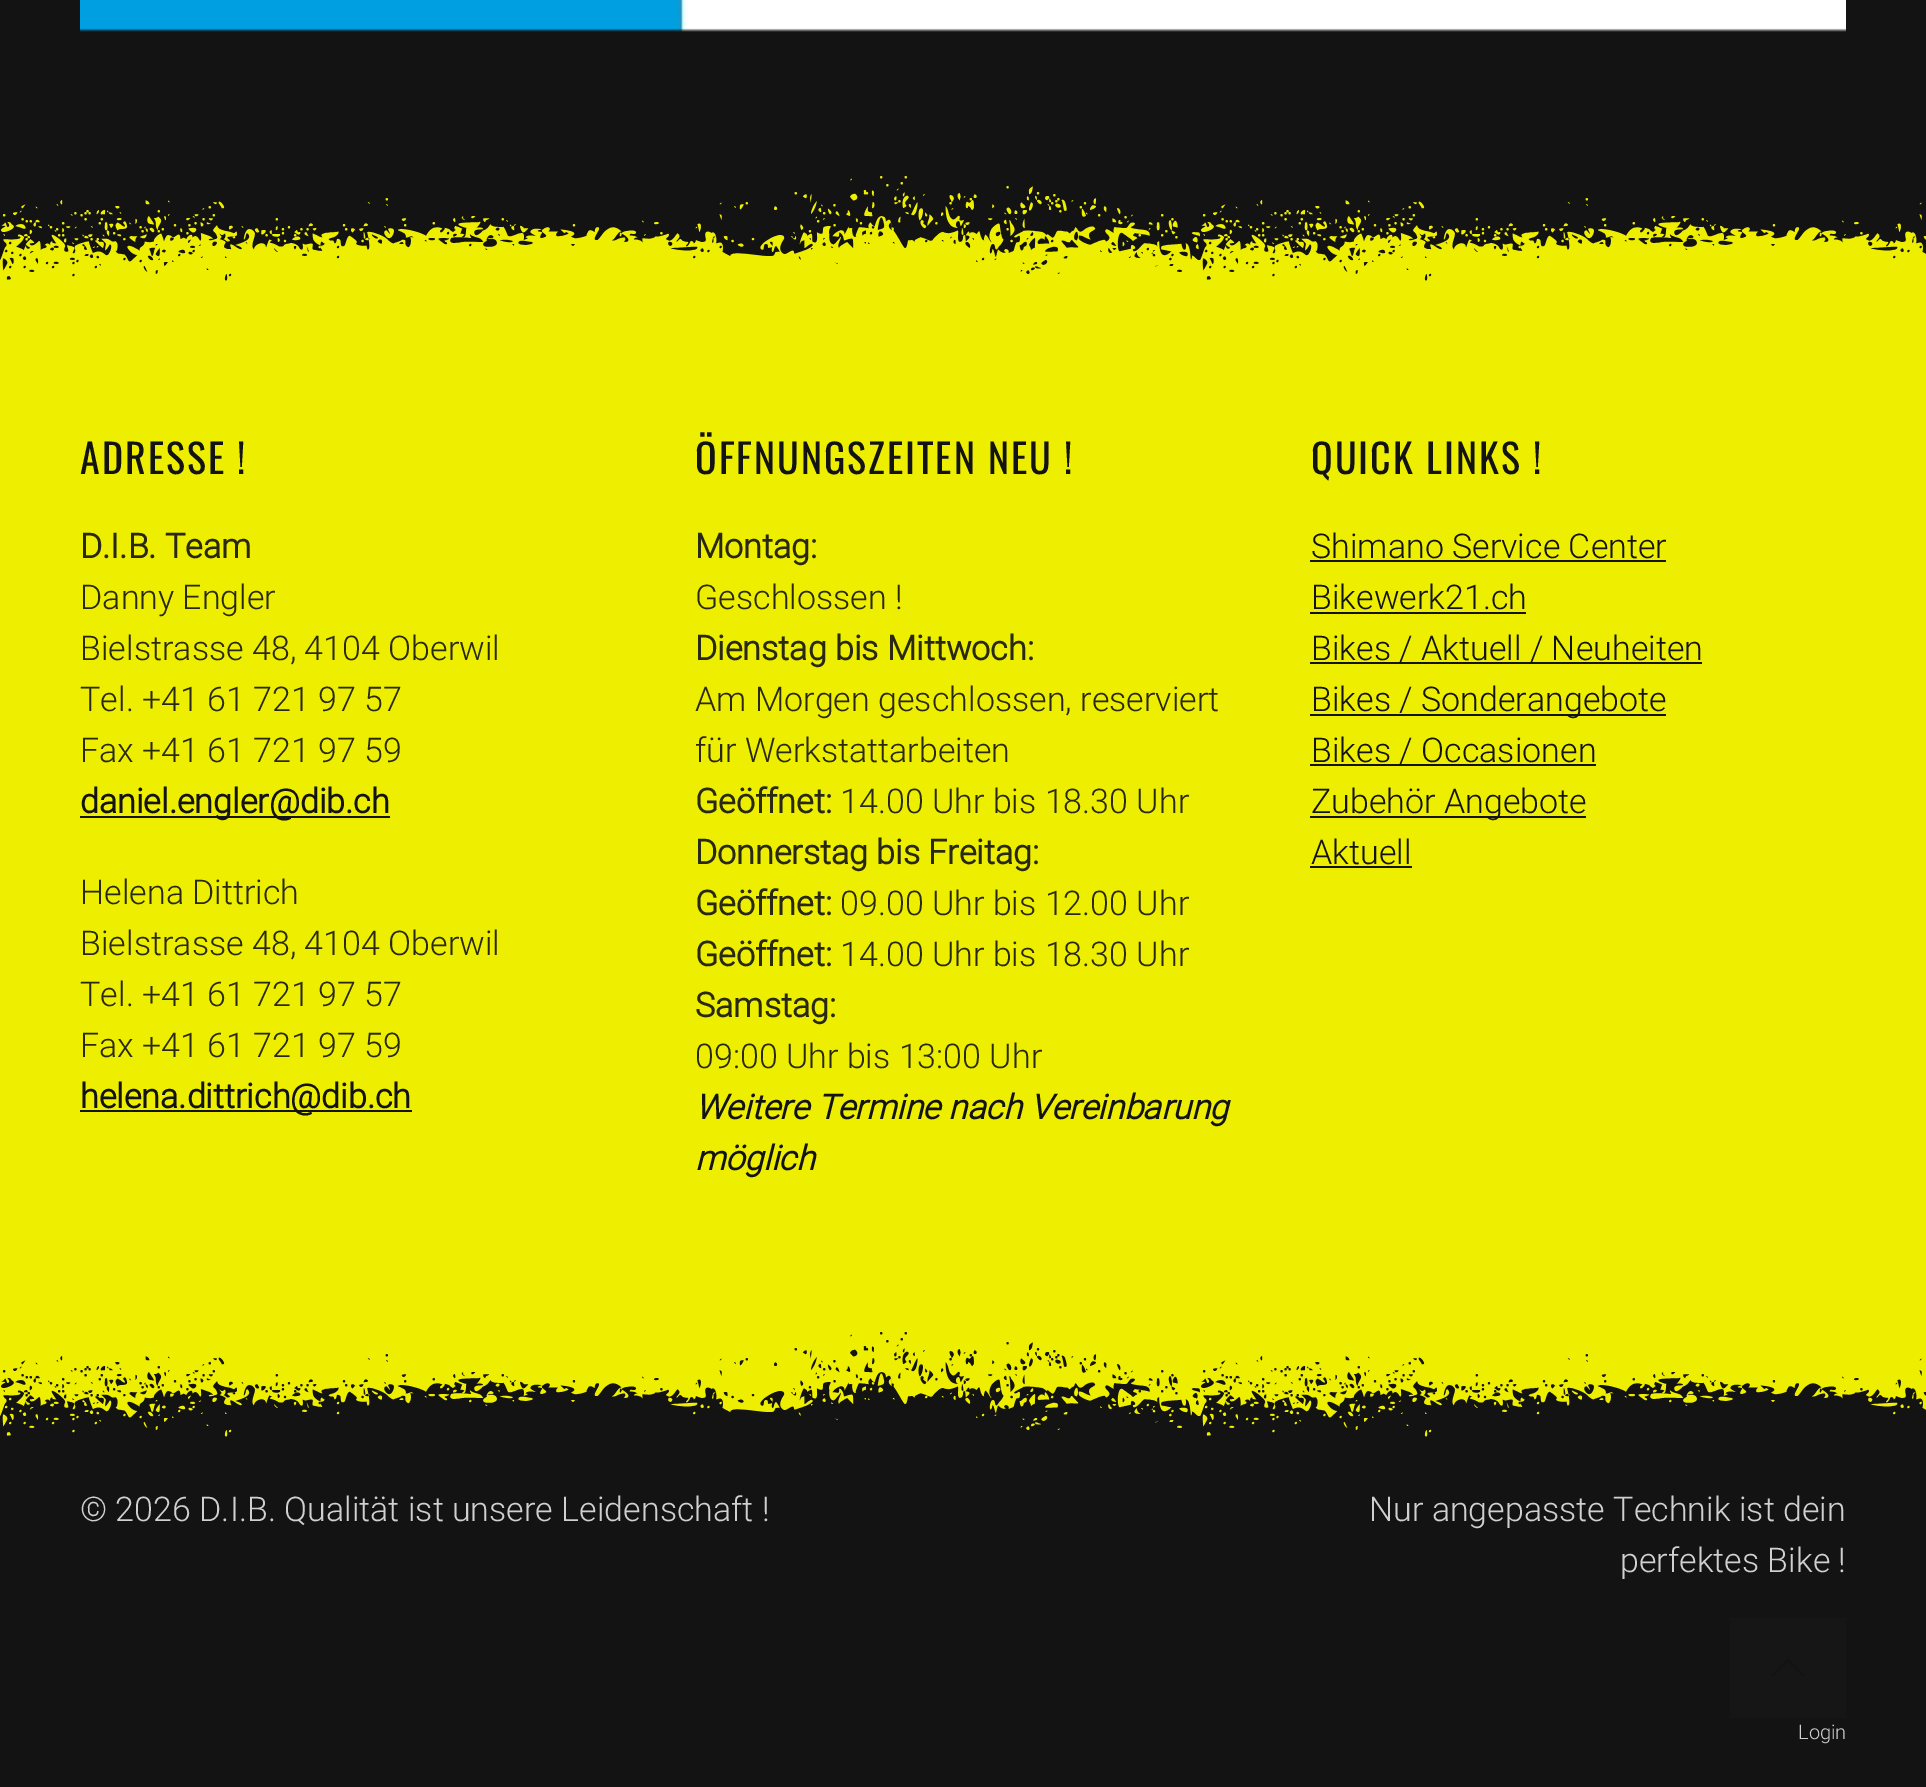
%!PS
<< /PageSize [1926 1787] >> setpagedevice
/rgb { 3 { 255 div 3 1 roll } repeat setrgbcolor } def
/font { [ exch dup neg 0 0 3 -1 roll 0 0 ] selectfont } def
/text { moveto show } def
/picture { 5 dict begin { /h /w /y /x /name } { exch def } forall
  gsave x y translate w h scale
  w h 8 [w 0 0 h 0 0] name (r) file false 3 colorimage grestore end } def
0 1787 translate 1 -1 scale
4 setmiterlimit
19 19 19 rgb
0 0 1926 1787 rectfill
(img_01.rgb) 80 0 1766 32 picture
238 238 0 rgb
0 290 1926 1147 rectfill
(img_02.rgb) 0 176 1926 114 picture
19 19 19 rgb
80 816 310 2 rectfill
80 1110 332 2 rectfill
1310 560 356 2 rectfill
1310 612 216 2 rectfill
1310 662 392 2 rectfill
1310 714 356 2 rectfill
1310 764 286 2 rectfill
1310 816 276 2 rectfill
1310 866 102 2 rectfill
(img_03.rgb) 0 1332 1926 114 picture
22 22 22 rgb
1730 1618 116 100 rectfill
19 19 19 rgb
2.4 setlinewidth
1772 1676 moveto 16 -16 rlineto 16 16 rlineto stroke
/Oswald-Regular 40 font
80 474 moveto 2 0 (ADRESSE !) ashow
/Roboto-Bold 34 font
41 41 17 rgb
(D.I.B. Team) 80 558 text
/Roboto-Light 34 font
(Danny Engler) 80 609 text
(Bielstrasse 48, 4104 Oberwil) 80 660 text
(Tel. +41 61 721 97 57) 80 711 text
(Fax +41 61 721 97 59) 80 762 text
/Roboto-Bold 34 font
19 19 19 rgb
(daniel.engler@dib.ch) 80 813 text
/Roboto-Light 34 font
41 41 17 rgb
(Helena Dittrich) 80 904 text
(Bielstrasse 48, 4104 Oberwil) 80 955 text
(Tel. +41 61 721 97 57) 80 1006 text
(Fax +41 61 721 97 59) 80 1057 text
/Roboto-Bold 34 font
19 19 19 rgb
(helena.dittrich@dib.ch) 80 1108 text
/Oswald-Regular 40 font
695 474 moveto 2 0 (ÖFFNUNGSZEITEN NEU !) ashow
/Roboto-Bold 34 font
41 41 17 rgb
(Montag:) 695 558 text
/Roboto-Light 34 font
(Geschlossen !) 695 609 text
/Roboto-Bold 34 font
(Dienstag bis Mittwoch:) 695 660 text
/Roboto-Light 34 font
(Am Morgen geschlossen, reserviert) 695 711 text
(für Werkstattarbeiten) 695 762 text
/Roboto-Bold 34 font
(Geöffnet:) 695 813 text
/Roboto-Light 34 font
(14.00 Uhr bis 18.30 Uhr) 840 813 text
/Roboto-Bold 34 font
(Donnerstag bis Freitag:) 695 864 text
(Geöffnet:) 695 915 text
/Roboto-Light 34 font
(09.00 Uhr bis 12.00 Uhr) 840 915 text
/Roboto-Bold 34 font
(Geöffnet:) 695 966 text
/Roboto-Light 34 font
(14.00 Uhr bis 18.30 Uhr) 840 966 text
/Roboto-Bold 34 font
(Samstag:) 695 1017 text
/Roboto-Light 34 font
(09:00 Uhr bis 13:00 Uhr) 695 1068 text
/Roboto-BoldItalic 34 font
19 19 19 rgb
(Weitere Termine nach Vereinbarung) 695 1119 text
(möglich) 695 1170 text
/Oswald-Regular 40 font
1311 474 moveto 2 0 (QUICK LINKS !) ashow
/Roboto-Light 34 font
(Shimano Service Center) 1311 558 text
(Bikewerk21.ch) 1311 609 text
(Bikes / Aktuell / Neuheiten) 1311 660 text
(Bikes / Sonderangebote) 1311 711 text
(Bikes / Occasionen) 1311 762 text
(Zubehör Angebote) 1311 813 text
(Aktuell) 1311 864 text
208 208 208 rgb
(© 2026 D.I.B. Qualität ist unsere Leidenschaft !) 80 1521 text
(Nur angepasste Technik ist dein) 1369 1521 text
(perfektes Bike !) 1620 1572 text
/Roboto-Light 20 font
(Login) 1798 1739 text
showpage
